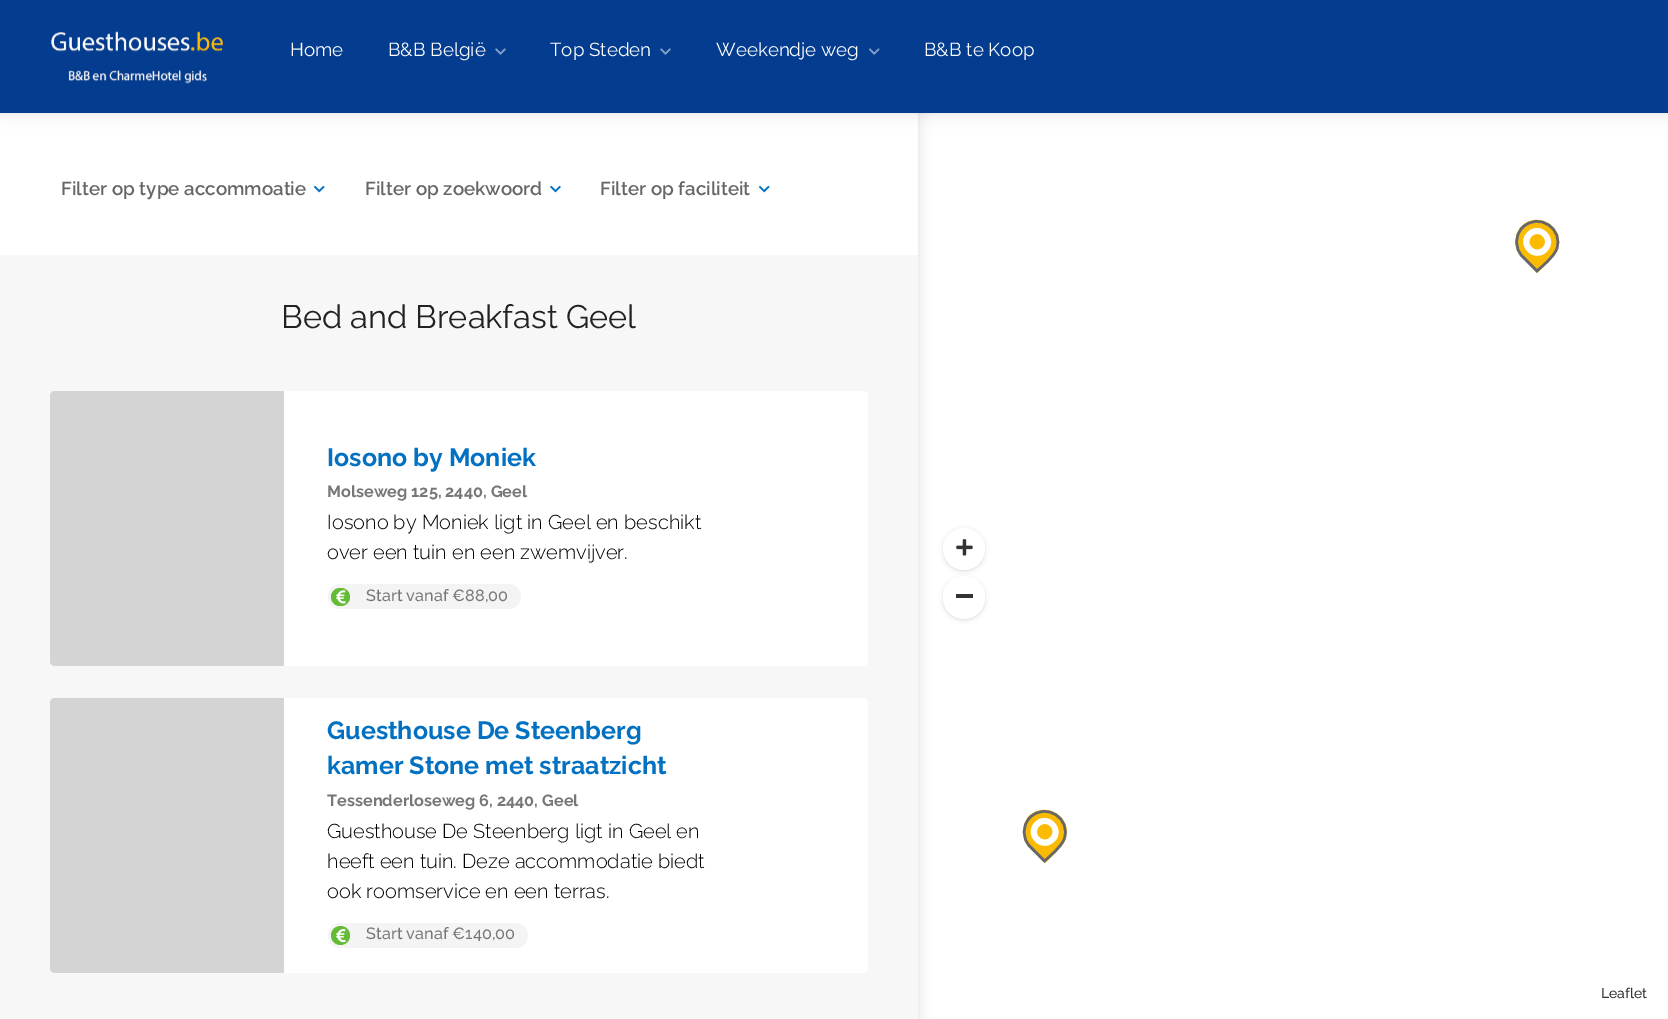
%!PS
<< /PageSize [1668 1019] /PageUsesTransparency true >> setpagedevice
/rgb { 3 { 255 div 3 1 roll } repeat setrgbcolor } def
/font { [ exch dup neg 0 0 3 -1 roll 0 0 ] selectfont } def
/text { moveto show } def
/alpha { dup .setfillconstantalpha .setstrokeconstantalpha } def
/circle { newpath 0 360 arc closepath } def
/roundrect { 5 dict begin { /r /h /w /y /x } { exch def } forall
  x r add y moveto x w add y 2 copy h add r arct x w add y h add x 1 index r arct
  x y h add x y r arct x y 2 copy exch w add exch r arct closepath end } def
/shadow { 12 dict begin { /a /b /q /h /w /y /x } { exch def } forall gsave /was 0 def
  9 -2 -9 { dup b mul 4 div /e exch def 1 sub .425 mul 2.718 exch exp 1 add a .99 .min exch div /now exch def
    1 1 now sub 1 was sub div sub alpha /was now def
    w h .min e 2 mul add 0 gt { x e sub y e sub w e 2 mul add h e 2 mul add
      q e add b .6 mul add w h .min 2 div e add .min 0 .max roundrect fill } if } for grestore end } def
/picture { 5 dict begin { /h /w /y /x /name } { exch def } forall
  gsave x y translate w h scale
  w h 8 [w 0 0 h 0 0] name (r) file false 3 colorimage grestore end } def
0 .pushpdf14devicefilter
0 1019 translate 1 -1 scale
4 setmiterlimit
255 255 255 rgb
0 0 1668 1019 rectfill
0 0 0 rgb
0 0 918 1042 0 7.5 0.12 shadow
255 255 255 rgb
0 113 918 142 rectfill
0 0 0 rgb
0 0 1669 113 0 7.5 0.12 shadow
4 61 143 rgb
0 0 1668 113 rectfill
(img_01.rgb) 50 31 174 55 picture
(img_02.rgb) 495 48 11 7 picture
(img_02.rgb) 660 48 11 7 picture
(img_03.rgb) 869 48 11 7 picture
247 247 247 rgb
0 255 918 764 rectfill
(img_04.rgb) 314 185 11 8 picture
(img_05.rgb) 550 185 11 8 picture
(img_04.rgb) 759 185 11 8 picture
255 255 255 rgb
50 391 818 275 5 roundrect fill
0.2 alpha
39 39 41 rgb
55 391 moveto 229 0 rlineto 0 275 rlineto -229 0 rlineto -3 0 -5 -2 -5 -5 rcurveto 0 -265 rlineto 0 -3 2 -5 5 -5 rcurveto closepath fill
1 alpha
244 244 244 rgb
328 584 193 25 12.5 roundrect fill
100 188 54 rgb
331 588 19 18 9 roundrect fill
(img_06.rgb) 336 590 10 14 picture
255 255 255 rgb
50 698 818 275 5 roundrect fill
0.2 alpha
39 39 41 rgb
55 698 moveto 229 0 rlineto 0 275 rlineto -229 0 rlineto -3 0 -5 -2 -5 -5 rcurveto 0 -265 rlineto 0 -3 2 -5 5 -5 rcurveto closepath fill
1 alpha
244 244 244 rgb
328 923 200 25 12.5 roundrect fill
100 188 54 rgb
340.5 935.5 9.5 circle fill
(img_07.rgb) 336 929 10 14 picture
251 187 2 rgb
1522 226 moveto 16 -16 44 2 35 24 rcurveto -3 7 -14 17 -20 23 rcurveto -15 -16 rlineto -9 -8 -9 -22 0 -31 rcurveto closepath fill
102 103 107 rgb
2.5 setlinewidth
1522.5 227.5 moveto 16 -16 42 1.5 34 22 rcurveto -3 7.5 -13.5 16 -19.5 21.5 rcurveto -14.5 -14.5 rlineto -8 -8 -8 -21 0 -29 rcurveto closepath stroke
255 255 255 rgb
1527.5 232 moveto 13 -12.5 32 7 19.5 19.5 rcurveto -13 13 -32.5 -6.5 -19.5 -19.5 rcurveto closepath fill
251 187 2 rgb
1532 236.5 moveto 7 -7 17.5 3.5 10.5 10.5 rcurveto -7 7 -17.5 -3.5 -10.5 -10.5 rcurveto closepath fill
1029 816 moveto 17 -16 45 2 36 24 rcurveto -3 7 -14 17 -20 23 rcurveto -16 -16 rlineto -8 -8 -8 -22 0 -31 rcurveto closepath fill
102 103 107 rgb
1030 817.5 moveto 16 -16 42 1.5 34 22 rcurveto -3 7.5 -13.5 16 -19.5 21.5 rcurveto -14.5 -14.5 rlineto -8 -8 -8 -21 0 -29 rcurveto closepath stroke
255 255 255 rgb
1035 822 moveto 13 -12.5 32 7 19.5 19.5 rcurveto -13 13 -32.5 -6.5 -19.5 -19.5 rcurveto closepath fill
251 187 2 rgb
1039.5 826.5 moveto 7 -7 17.5 3.5 10.5 10.5 rcurveto -7 7 -17.5 -3.5 -10.5 -10.5 rcurveto closepath fill
0 0 0 rgb
944 530 40 40 20 2.5 0.2 shadow
255 255 255 rgb
964 549 21 circle fill
(img_08.rgb) 956 539 17 17 picture
0 0 0 rgb
944 579 40 40 20 2.5 0.2 shadow
255 255 255 rgb
943 576 42 43 21 roundrect fill
51 51 51 rgb
956 594 17 4 rectfill
/Raleway-Regular 18.75 font
255 255 255 rgb
(Home) 290 56 text
(B&B België) 388 56 text
(Top Steden) 550 56 text
(Weekendje weg) 716 56 text
(B&B te Koop) 924 56 text
/Raleway-SemiBold 18.75 font
102 102 102 rgb
(Filter op type accommoatie) 61 195 text
(Filter op zoekwoord) 365 195 text
(Filter op faciliteit) 600 195 text
/Raleway-Regular 32.5 font
34 34 34 rgb
(Bed and Breakfast Geel) 281 328 text
/Raleway-Bold 25 font
2 113 194 rgb
(Iosono by Moniek) 327 466 text
/Raleway-Bold 16.25 font
119 119 119 rgb
(Molseweg 125, 2440, Geel) 327 497 text
/Raleway-Light 20 font
0 0 0 rgb
(Iosono by Moniek ligt in Geel en beschikt) 327 529 text
(over een tuin en een zwemvijver.) 327 559 text
/Raleway-Medium 16.25 font
119 119 119 rgb
(Start vanaf €88,00) 366 601 text
/Raleway-Bold 25 font
2 113 194 rgb
(Guesthouse De Steenberg) 327 739 text
(kamer Stone met straatzicht) 327 774 text
/Raleway-Bold 16.25 font
119 119 119 rgb
(Tessenderloseweg 6, 2440, Geel) 327 806 text
/Raleway-Light 20 font
0 0 0 rgb
(Guesthouse De Steenberg ligt in Geel en) 327 838 text
(heeft een tuin. Deze accommodatie biedt) 327 868 text
(ook roomservice en een terras.) 327 898 text
/Raleway-Medium 16.25 font
119 119 119 rgb
(Start vanaf €140,00) 366 939 text
/Raleway-Medium 14 font
51 51 51 rgb
(Leaflet) 1601 998 text
.poppdf14devicefilter showpage
